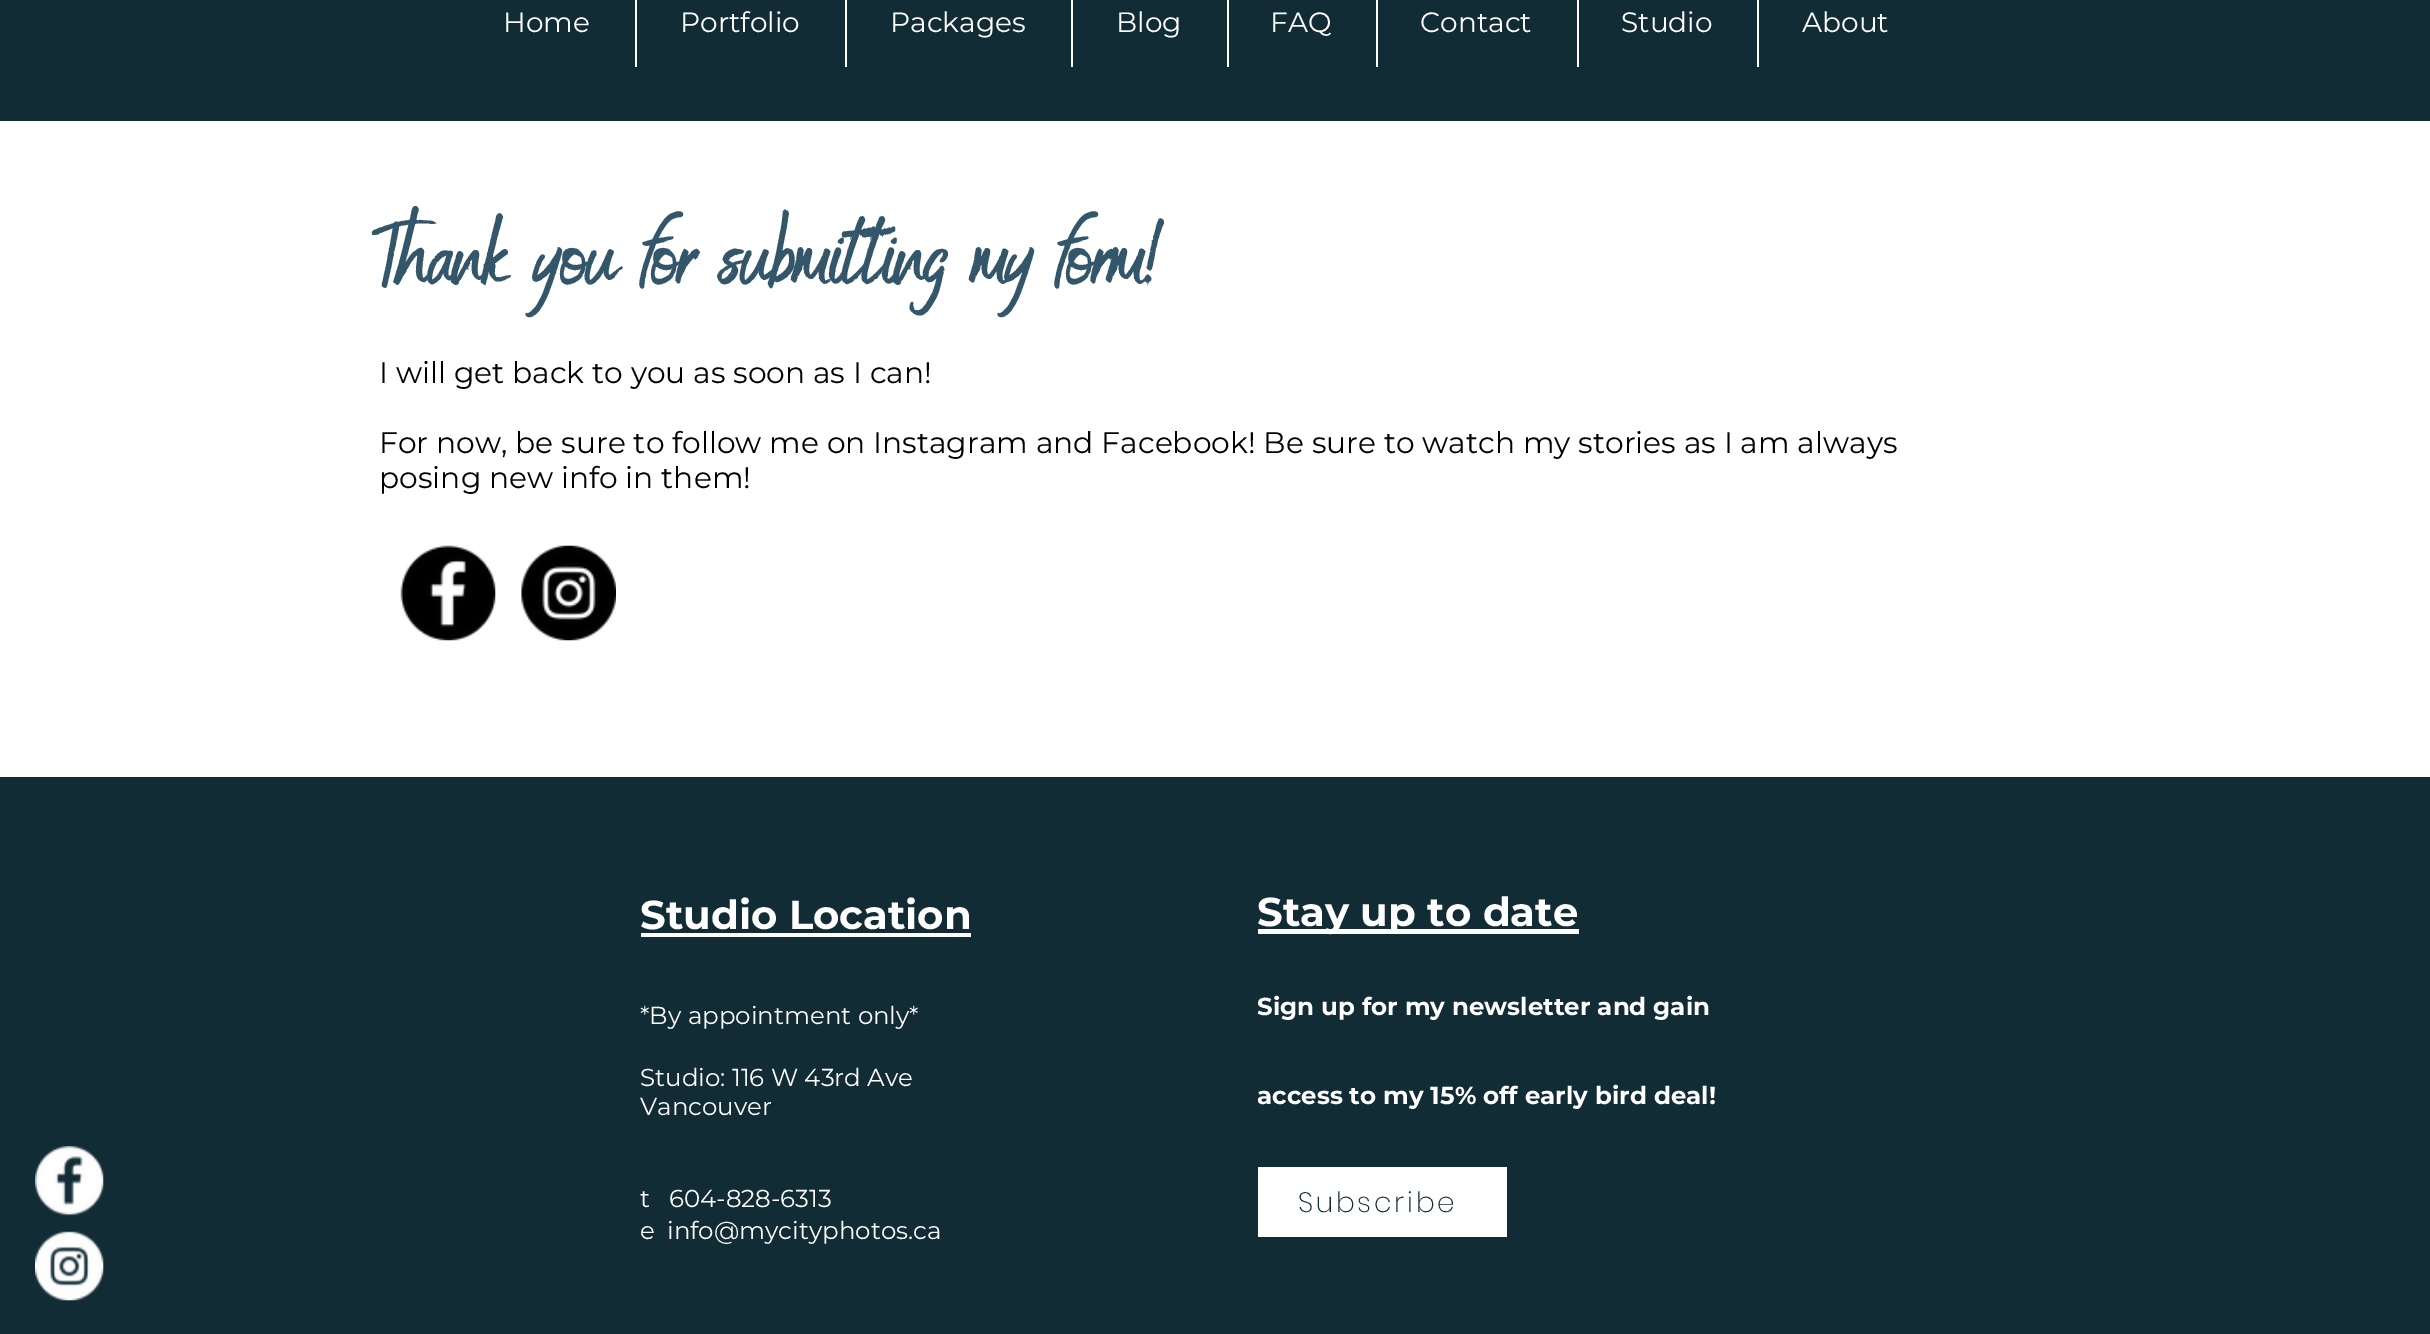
%!PS
<< /PageSize [2430 1334] >> setpagedevice
/rgb { 3 { 255 div 3 1 roll } repeat setrgbcolor } def
/font { [ exch dup neg 0 0 3 -1 roll 0 0 ] selectfont } def
/text { moveto show } def
/picture { 5 dict begin { /h /w /y /x /name } { exch def } forall
  gsave x y translate w h scale
  w h 8 [w 0 0 h 0 0] name (r) file false 3 colorimage grestore end } def
0 1334 translate 1 -1 scale
4 setmiterlimit
255 255 255 rgb
0 0 2430 1334 rectfill
18 44 53 rgb
0 0 2430 121 rectfill
255 255 255 rgb
635 0 2 67 rectfill
845 0 2 67 rectfill
1071 0 2 67 rectfill
1227 0 2 67 rectfill
1376 0 2 67 rectfill
1577 0 2 67 rectfill
1757 0 2 67 rectfill
(img_01.rgb) 400 545 96 96 picture
(img_02.rgb) 521 545 95 96 picture
18 44 53 rgb
0 777 2430 557 rectfill
(img_03.rgb) 35 1146 69 70 picture
(img_04.rgb) 35 1231 69 70 picture
255 255 255 rgb
641 933 330 4 rectfill
1258 929 321 5 rectfill
1258 1167 249 70 rectfill
/Montserrat-Regular 28 font
(Home) 503 32 text
(Portfolio) 680 32 text
(Packages) 890 32 text
(Blog) 1116 32 text
(FAQ) 1270 32 text
(Contact) 1420 32 text
(Studio) 1621 32 text
(About) 1802 32 text
/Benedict-Bold 85.75 font
51 86 106 rgb
(Thank you for submitting my form!) 372 282 text
/Montserrat-Regular 29.75 font
0 0 0 rgb
(I will get back to you as soon as I can!) 379 383 text
(For now, be sure to follow me on Instagram and Facebook! Be sure to watch my stories as I am always) 379 453 text
(posing new info in them!) 379 488 text
/Montserrat-Bold 40.25 font
255 255 255 rgb
(Studio Location) 640 929 text
/Montserrat-Regular 24.5 font
(*By appointment only*) 640 1024 text
(Studio: 116 W 43rd Ave) 640 1086 text
(Vancouver) 640 1115 text
(t) 640 1207 text
(604-828-6313) 669 1207 text
(e) 640 1239 text
(info@mycityphotos.ca) 667 1239 text
/Montserrat-Bold 40.25 font
(Stay up to date) 1257 926 text
/Montserrat-Bold 24.5 font
(Sign up for my newsletter and gain) 1257 1015 text
(access to my 15% off early bird deal!) 1257 1104 text
/Poppins-ExtraLight 28 font
18 44 53 rgb
1298 1212 moveto 2.75 0 (Subscribe) ashow
showpage
